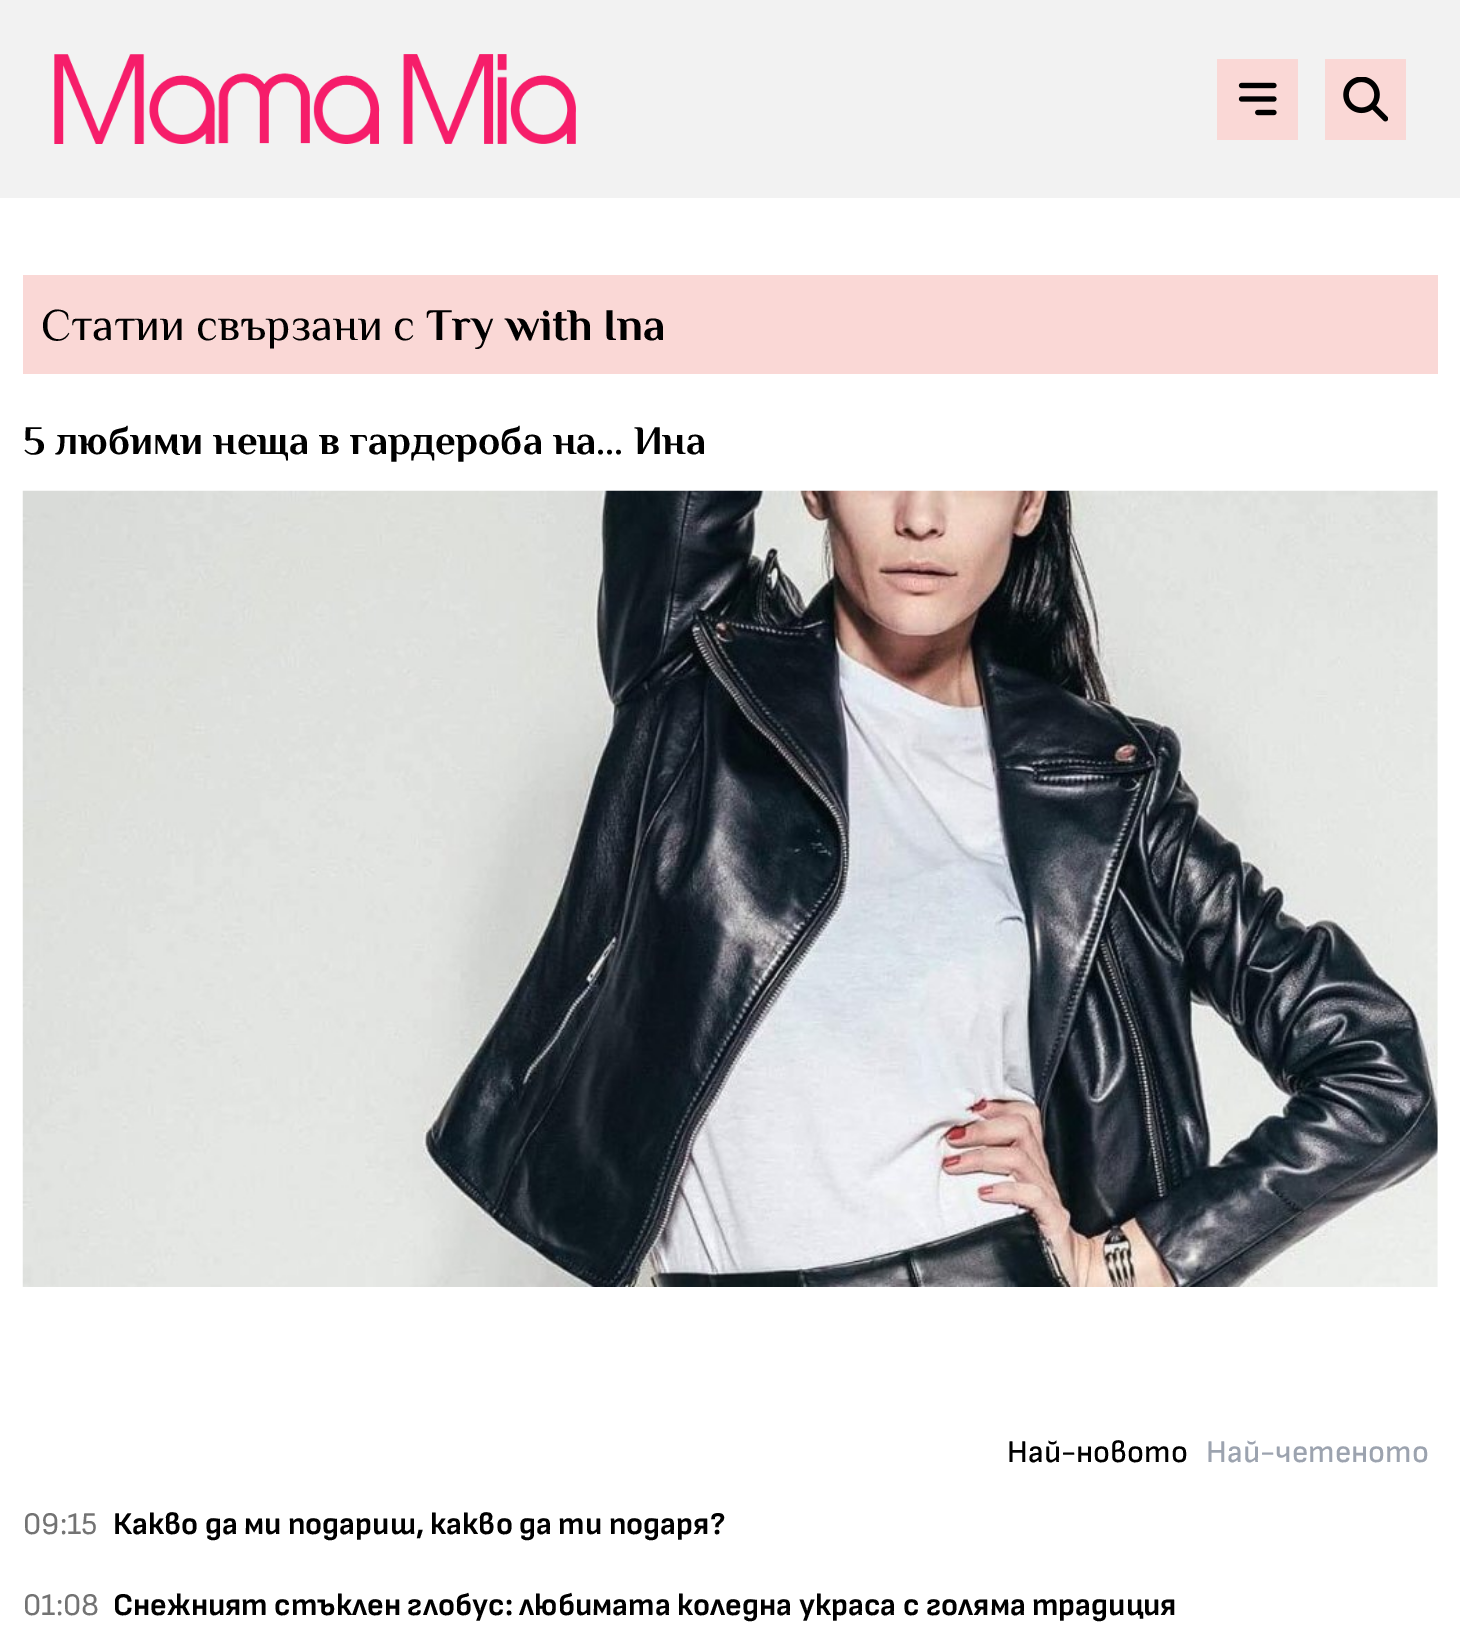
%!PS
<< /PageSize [1460 1630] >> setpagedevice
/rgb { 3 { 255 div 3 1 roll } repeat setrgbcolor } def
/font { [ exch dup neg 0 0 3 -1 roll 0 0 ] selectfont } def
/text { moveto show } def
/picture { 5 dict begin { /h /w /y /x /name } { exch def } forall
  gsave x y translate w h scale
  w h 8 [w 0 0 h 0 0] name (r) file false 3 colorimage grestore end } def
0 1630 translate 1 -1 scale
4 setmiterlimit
255 255 255 rgb
0 0 1460 1630 rectfill
242 242 242 rgb
0 0 1460 198 rectfill
(img_01.rgb) 54 54 522 90 picture
250 216 214 rgb
1217 59 81 81 rectfill
(img_02.rgb) 1238 82 39 34 picture
1325 59 81 81 rectfill
(img_03.rgb) 1343 77 45 45 picture
23 275 1415 99 rectfill
(img_04.rgb) 22 490 1416 797 picture
/Philosopher-Regular 45 font
0 0 0 rgb
(Статии свързани с) 41 340 text
/Philosopher-Bold 45 font
(Try with Ina) 426 340 text
/Philosopher-Bold 40.5 font
(5 любими неща в гардероба на... Ина) 23 454 text
/SofiaSans-Medium 31.5 font
(Най-новото) 1007 1462 text
156 163 175 rgb
(Най-четеното) 1206 1462 text
/SofiaSans-Regular 31.5 font
115 115 115 rgb
(09:15) 23 1534 text
/SofiaSans-Bold 31.5 font
0 0 0 rgb
(Какво да ми подариш, какво да ти подаря?) 113 1534 text
/SofiaSans-Regular 31.5 font
115 115 115 rgb
(01:08) 23 1615 text
/SofiaSans-Bold 31.5 font
0 0 0 rgb
(Снежният стъклен глобус: любимата коледна украса с голяма традиция) 113 1615 text
showpage
